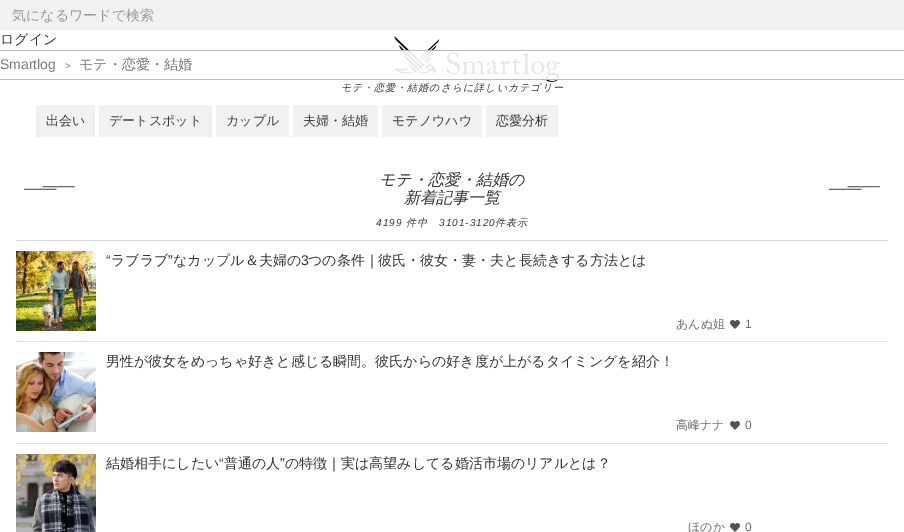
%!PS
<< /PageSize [904 532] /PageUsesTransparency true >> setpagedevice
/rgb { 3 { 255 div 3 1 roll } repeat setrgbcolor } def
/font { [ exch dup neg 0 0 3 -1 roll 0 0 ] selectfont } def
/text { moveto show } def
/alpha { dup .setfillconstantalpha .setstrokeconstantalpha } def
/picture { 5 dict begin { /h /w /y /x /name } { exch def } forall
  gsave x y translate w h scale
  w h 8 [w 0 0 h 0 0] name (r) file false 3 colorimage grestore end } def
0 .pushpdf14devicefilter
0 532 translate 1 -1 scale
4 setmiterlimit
255 255 255 rgb
0 0 904 532 rectfill
(img_01.rgb) 0 74 904 5 picture
241 241 241 rgb
0 0 904 30 rectfill
(img_02.rgb) 394 36 166 46 picture
0.9 alpha
255 255 255 rgb
0 50 904 30 rectfill
181 181 181 rgb
0 50 904 1 rectfill
0 79 904 1 rectfill
1 alpha
241 241 241 rgb
36 105 59 32 rectfill
99 105 113 32 rectfill
216 105 73 32 rectfill
293 105 85 32 rectfill
382 105 100 32 rectfill
486 105 72 32 rectfill
(img_03.rgb) 24 186 856 4 picture
217 217 217 rgb
16 240 872 1 rectfill
222 222 222 rgb
16 341 872 1 rectfill
(img_04.rgb) 16 251 80 80 picture
(img_05.rgb) 730 320 10 9 picture
16 443 872 1 rectfill
(img_06.rgb) 16 352 80 80 picture
(img_05.rgb) 730 421 10 9 picture
(img_07.rgb) 16 454 80 78 picture
(img_05.rgb) 730 523 10 9 picture
/WenQuanYiZenHei-Medium 14 font
153 153 153 rgb
(気になるワードで検索) 12 20 text
51 51 51 rgb
(ログイン) 0 44 text
/LiberationSans-Regular 14 font
123 123 123 rgb
(Smartlog) 0 69 text
/LiberationSans-Regular 10 font
(>) 65 69 text
/WenQuanYiZenHei-Medium 14 font
117 117 117 rgb
(モテ・恋愛・結婚) 79 69 text
/WenQuanYiZenHei-MediumItalic 10 font
51 51 51 rgb
341 91 moveto 1 0 (モテ・恋愛・結婚のさらに詳しいカテゴリー) ashow
/WenQuanYiZenHei-Medium 13 font
59 59 59 rgb
(出会い) 46 125 text
(デートスポット) 109 125 text
(カップル) 226 125 text
(夫婦・結婚) 303 125 text
(モテノウハウ) 392 125 text
(恋愛分析) 496 125 text
/WenQuanYiZenHei-MediumItalic 16 font
51 51 51 rgb
(モテ・恋愛・結婚の) 379 185 text
(新着記事一覧) 404 203 text
/LiberationSans-Italic 10 font
376 226 moveto 1 0 (4199) ashow
/WenQuanYiZenHei-MediumItalic 10 font
406 226 moveto 1 0 (件中) ashow
/LiberationSans-Italic 10 font
439 226 moveto 1 0 (3101-3120) ashow
/WenQuanYiZenHei-MediumItalic 10 font
495 226 moveto 1 0 (件表示) ashow
/LiberationSans-Regular 14 font
(“) 106 265 text
/WenQuanYiZenHei-Medium 14 font
(ラブラブ) 111 265 text
/LiberationSans-Regular 14 font
(”) 168 265 text
/WenQuanYiZenHei-Medium 14 font
(なカップル＆夫婦の) 173 265 text
/LiberationSans-Regular 14 font
(3) 301 265 text
/WenQuanYiZenHei-Medium 14 font
(つの条件｜彼氏・彼女・妻・夫と長続きする方法とは) 308 265 text
/WenQuanYiZenHei-Medium 12 font
108 108 108 rgb
(あんぬ姐) 676 328 text
/LiberationSans-Regular 12 font
(1) 745 328 text
/WenQuanYiZenHei-Medium 14 font
51 51 51 rgb
(男性が彼女をめっちゃ好きと感じる瞬間。彼氏からの好き度が上がるタイミングを紹介！) 106 366 text
/WenQuanYiZenHei-Medium 12 font
108 108 108 rgb
(高峰ナナ) 676 429 text
/LiberationSans-Regular 12 font
(0) 745 429 text
/WenQuanYiZenHei-Medium 14 font
51 51 51 rgb
(結婚相手にしたい) 106 468 text
/LiberationSans-Regular 14 font
(“) 219 468 text
/WenQuanYiZenHei-Medium 14 font
(普通の人) 224 468 text
/LiberationSans-Regular 14 font
(”) 280 468 text
/WenQuanYiZenHei-Medium 14 font
(の特徴｜実は高望みしてる婚活市場のリアルとは？) 285 468 text
/WenQuanYiZenHei-Medium 12 font
108 108 108 rgb
(ほのか) 688 531 text
/LiberationSans-Regular 12 font
(0) 745 531 text
.poppdf14devicefilter showpage
